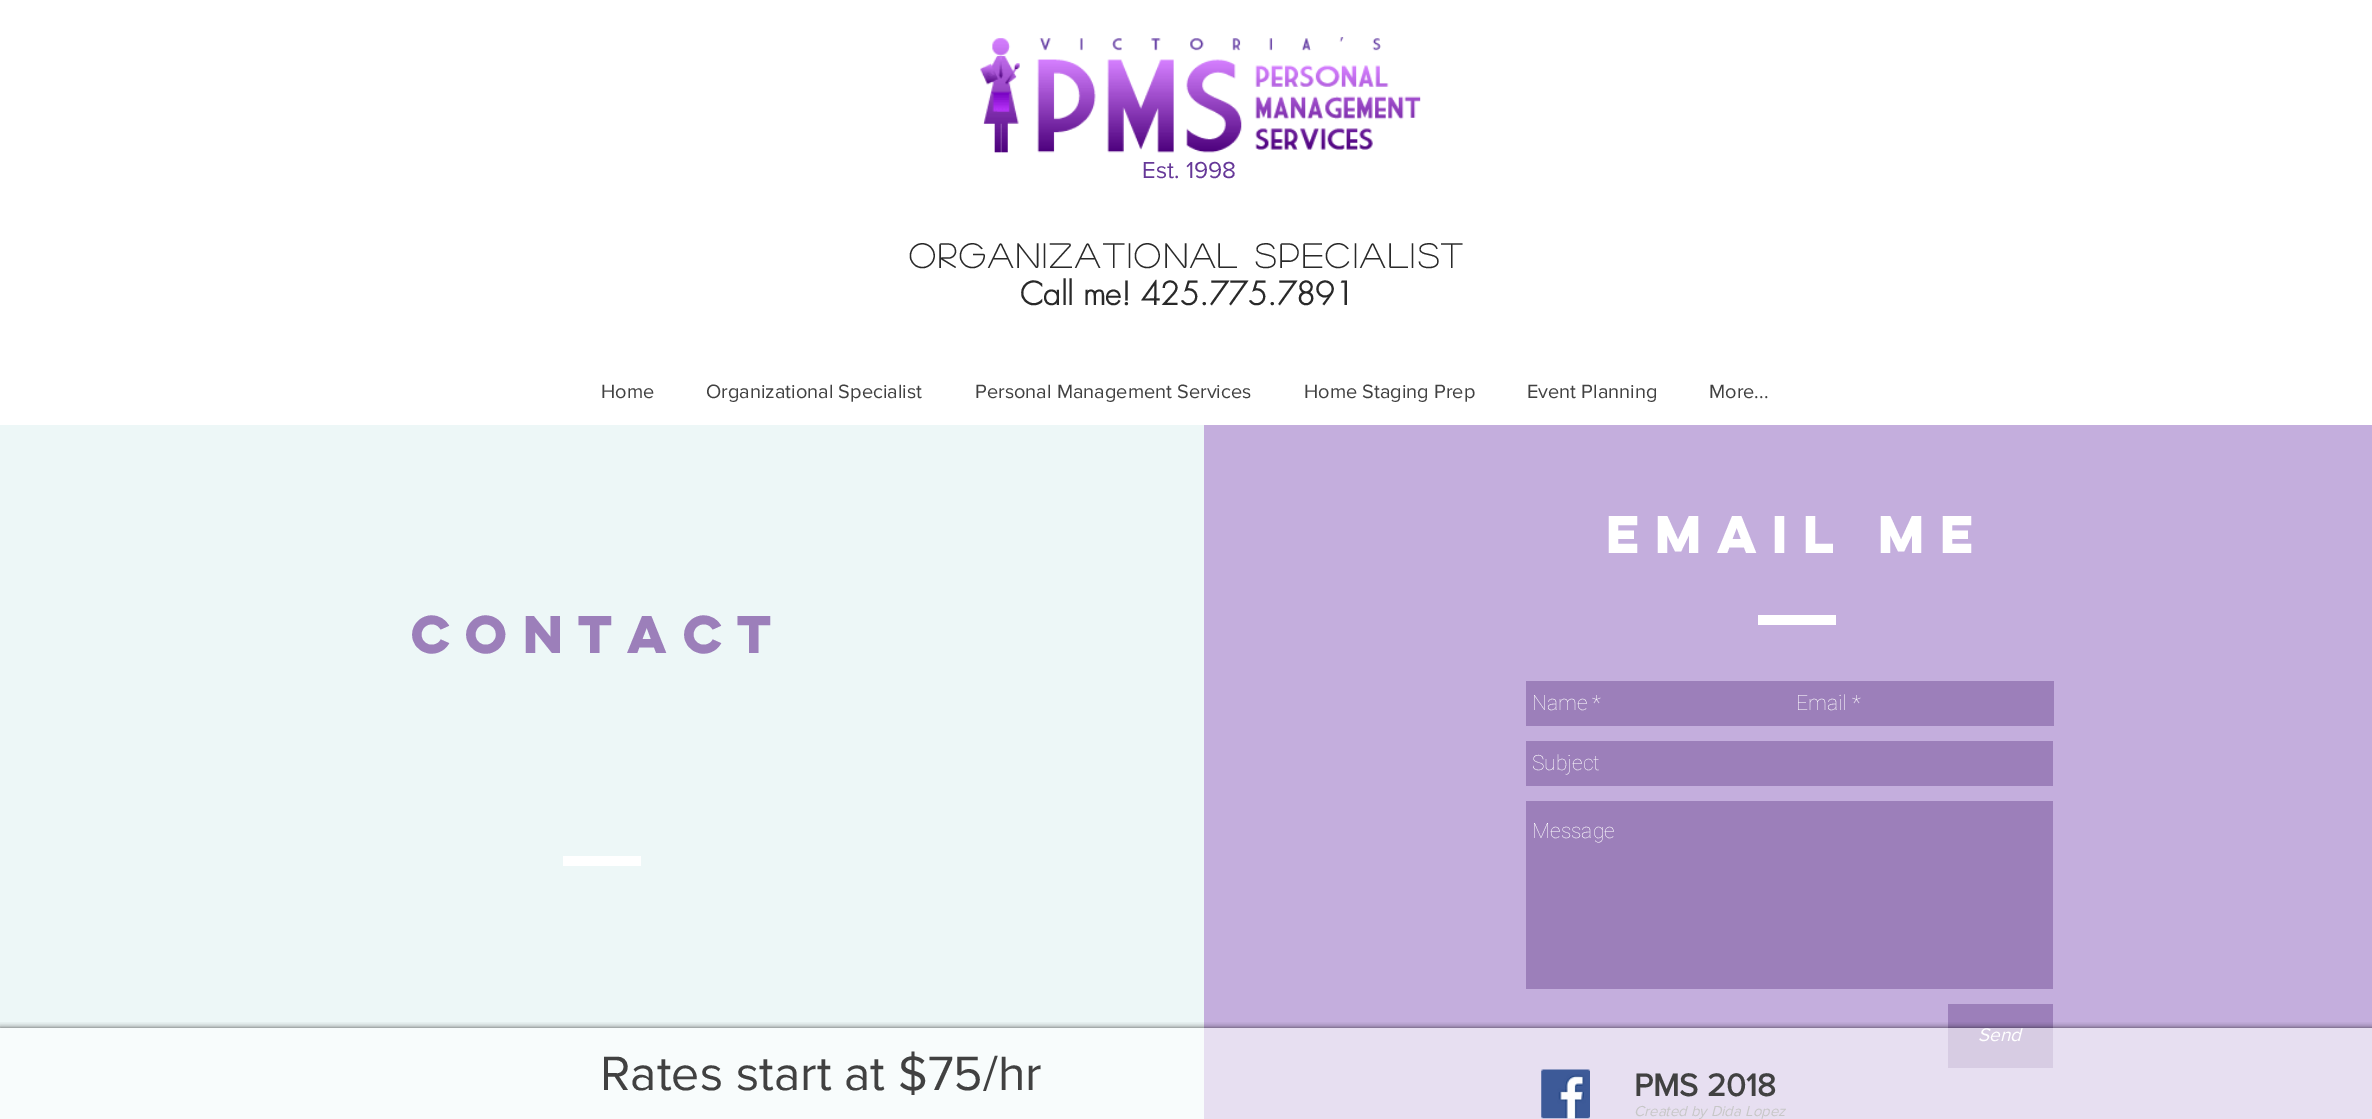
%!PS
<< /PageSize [2372 1119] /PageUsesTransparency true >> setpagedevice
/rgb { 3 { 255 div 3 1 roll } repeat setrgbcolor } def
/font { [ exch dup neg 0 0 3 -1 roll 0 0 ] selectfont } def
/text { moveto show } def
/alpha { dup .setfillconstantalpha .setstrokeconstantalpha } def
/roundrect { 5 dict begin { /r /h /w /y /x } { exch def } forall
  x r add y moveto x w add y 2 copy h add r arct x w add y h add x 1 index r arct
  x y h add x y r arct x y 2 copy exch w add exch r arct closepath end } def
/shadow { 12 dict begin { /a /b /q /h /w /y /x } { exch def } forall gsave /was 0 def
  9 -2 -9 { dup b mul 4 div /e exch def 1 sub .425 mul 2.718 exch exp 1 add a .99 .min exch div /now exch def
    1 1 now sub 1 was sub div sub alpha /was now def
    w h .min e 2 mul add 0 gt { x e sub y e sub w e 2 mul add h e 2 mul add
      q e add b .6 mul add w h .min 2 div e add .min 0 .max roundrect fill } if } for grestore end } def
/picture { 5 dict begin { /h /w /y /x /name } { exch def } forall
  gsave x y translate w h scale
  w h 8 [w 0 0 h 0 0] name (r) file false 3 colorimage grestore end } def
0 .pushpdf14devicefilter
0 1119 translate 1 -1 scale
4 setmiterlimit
255 255 255 rgb
0 0 2372 1119 rectfill
(img_01.rgb) 980 37 441 116 picture
237 247 247 rgb
0 425 1204 603 rectfill
248 252 252 rgb
0 1028 1204 91 rectfill
255 255 255 rgb
563 856 78 10 rectfill
196 174 221 rgb
1204 425 1168 603 rectfill
231 223 241 rgb
1204 1028 1168 91 rectfill
255 255 255 rgb
1758 615 78 10 rectfill
156 127 186 rgb
1526 681 528 45 rectfill
1526 741 527 45 rectfill
1526 801 527 188 rectfill
1948 1004 105 24 rectfill
215 204 227 rgb
1948 1028 105 40 rectfill
gsave
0 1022 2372 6 rectclip
0 0 0 rgb
0 1028 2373 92 0 3 0.7 shadow
grestore
(img_02.rgb) 1541 1069 49 50 picture
/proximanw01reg-Regular 24 font
102 56 152 rgb
(Est. 1998) 1142 178 text
/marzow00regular-Bold 33.75 font
41 41 41 rgb
909 268 moveto 3.4 0 (ORGANIZATIONAL SPECIALIST) ashow
/futura-Bold 31.25 font
(Call me! 425.775.7891) 1020 305 text
/proximanw01reg-Regular 20 font
65 65 65 rgb
(Home) 601 398 text
(Organizational Specialist) 706 398 text
(Personal Management Services) 975 398 text
(Home Staging Prep) 1304 398 text
(Event Planning) 1527 398 text
(More...) 1709 398 text
/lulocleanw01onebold-Bold 47.5 font
156 127 186 rgb
411 653 moveto 4.75 0 (CONTACT) ashow
255 255 255 rgb
1606 553 moveto 4.75 0 (Email me) ashow
/Roboto-Thin 21 font
(Name *) 1532 710 text
(Email *) 1796 710 text
(Subject) 1532 770 text
(Message) 1532 838 text
/proximanw01reg-Italic 19 font
(Send) 1978 1041 text
/proximanw01reg-Regular 50 font
65 65 65 rgb
(Rates start at $75/hr) 600 1090 text
/proximanw01reg-Bold 32.5 font
(PMS 2018) 1634 1096 text
/proximanw01reg-Italic 15 font
199 199 199 rgb
(Created by Dida Lopez) 1634 1116 text
.poppdf14devicefilter showpage
